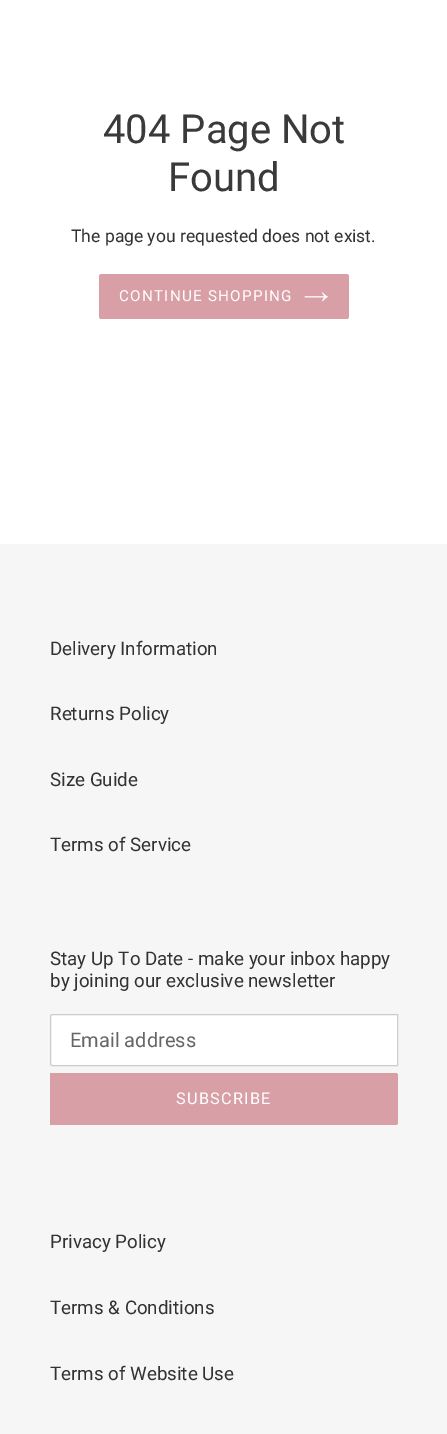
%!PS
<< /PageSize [447 1434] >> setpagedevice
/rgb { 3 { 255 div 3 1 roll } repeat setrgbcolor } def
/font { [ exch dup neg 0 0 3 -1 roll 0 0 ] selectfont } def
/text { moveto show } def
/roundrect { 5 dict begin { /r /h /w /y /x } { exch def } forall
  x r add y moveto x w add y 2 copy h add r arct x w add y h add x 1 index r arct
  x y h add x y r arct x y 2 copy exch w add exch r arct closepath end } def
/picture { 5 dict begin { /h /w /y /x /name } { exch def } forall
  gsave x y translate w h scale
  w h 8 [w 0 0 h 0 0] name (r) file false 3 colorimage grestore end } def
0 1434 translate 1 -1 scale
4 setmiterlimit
255 255 255 rgb
0 0 447 1434 rectfill
216 160 166 rgb
99 274 250 45 2.5 roundrect fill
(img_01.rgb) 304 292 24 10 picture
246 246 246 rgb
0 544 447 890 rectfill
255 255 255 rgb
52.5 1014.5 moveto 345 0 rlineto 0 51 rlineto -345 0 rlineto -1 0 -2 -1 -2 -2 rcurveto 0 -47 rlineto 0 -1 1 -2 2 -2 rcurveto closepath gsave fill grestore
204 204 204 rgb
stroke
216 160 166 rgb
50 1073 moveto 345.5 0 rlineto 1.5 0 2.5 1 2.5 2.5 rcurveto 0 47 rlineto 0 1.5 -1 2.5 -2.5 2.5 rcurveto -345.5 0 rlineto closepath fill
/Roboto-Regular 40 font
58 58 58 rgb
(404 Page Not) 103 143 text
(Found) 168 191 text
/Roboto-Regular 17.5 font
51 50 50 rgb
(The page you requested does not exist.) 71 242 text
/Roboto-Regular 15.25 font
255 255 255 rgb
119 301 moveto 1.25 0 (CONTINUE SHOPPING) ashow
/Roboto-Regular 18.75 font
51 50 50 rgb
(Delivery Information) 50 655 text
(Returns Policy) 50 720 text
(Size Guide) 50 786 text
(Terms of Service) 50 851 text
(Stay Up To Date - make your inbox happy) 50 965 text
(by joining our exclusive newsletter) 50 987 text
/Roboto-Regular 20 font
102 102 102 rgb
(Email address) 70 1047 text
/Roboto-Regular 16.25 font
255 255 255 rgb
176 1104 moveto 1.25 0 (SUBSCRIBE) ashow
/Roboto-Regular 18.75 font
51 50 50 rgb
(Privacy Policy) 50 1248 text
(Terms & Conditions) 50 1314 text
(Terms of Website Use) 50 1380 text
showpage
